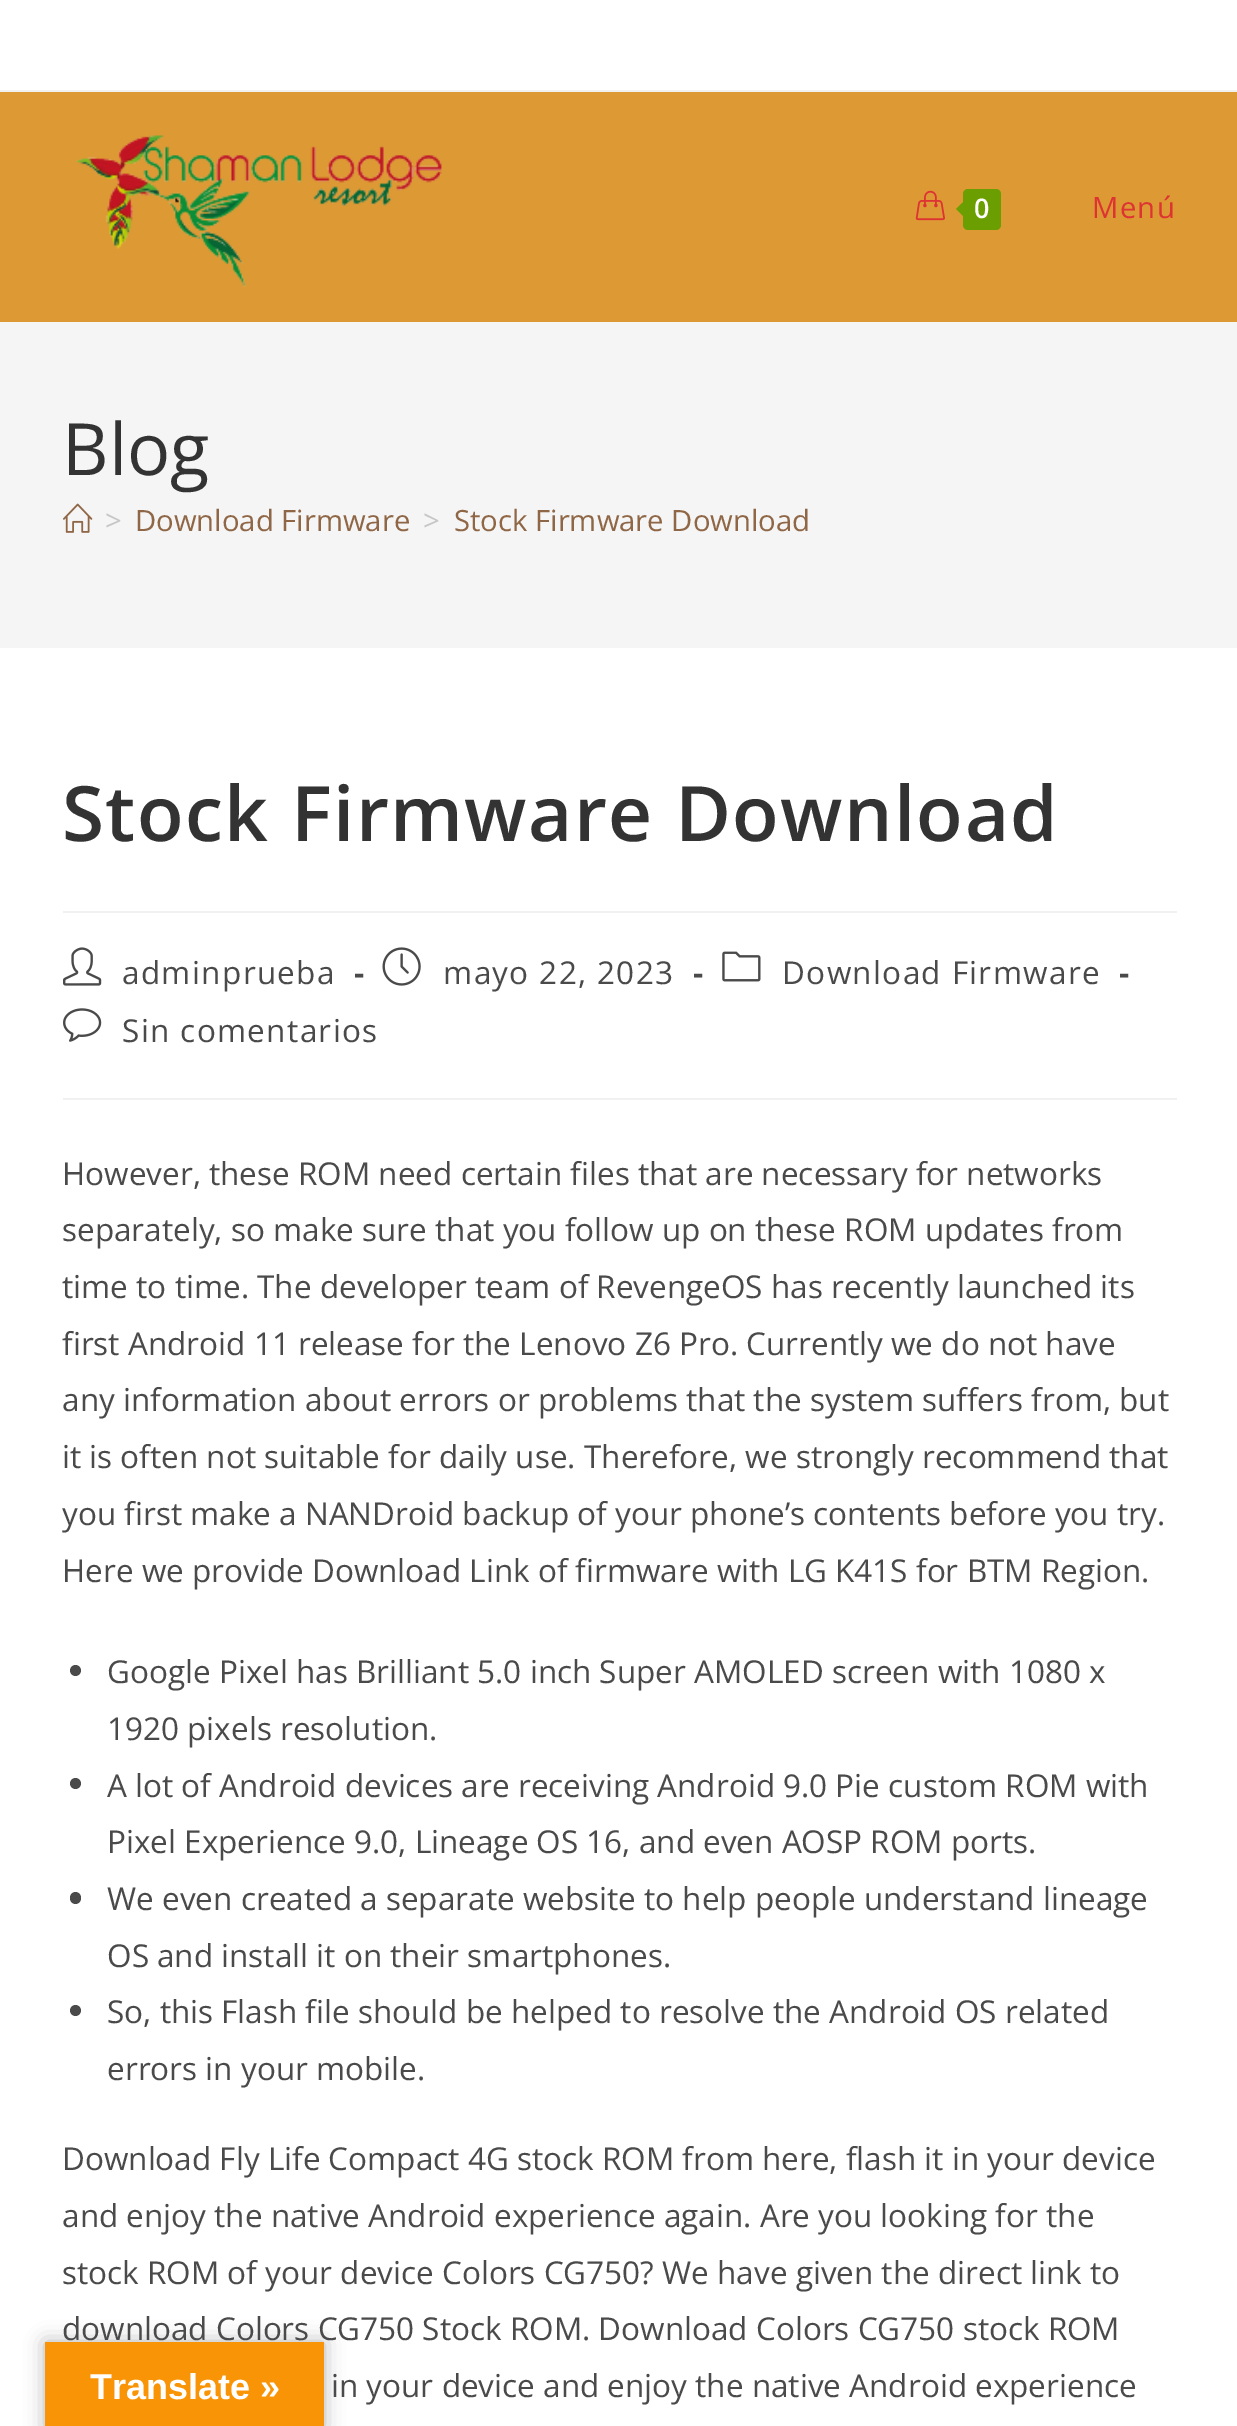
%!PS
<< /PageSize [1237 2426] /PageUsesTransparency true >> setpagedevice
/rgb { 3 { 255 div 3 1 roll } repeat setrgbcolor } def
/font { [ exch dup neg 0 0 3 -1 roll 0 0 ] selectfont } def
/text { moveto show } def
/alpha { dup .setfillconstantalpha .setstrokeconstantalpha } def
/circle { newpath 0 360 arc closepath } def
/roundrect { 5 dict begin { /r /h /w /y /x } { exch def } forall
  x r add y moveto x w add y 2 copy h add r arct x w add y h add x 1 index r arct
  x y h add x y r arct x y 2 copy exch w add exch r arct closepath end } def
/shadow { 12 dict begin { /a /b /q /h /w /y /x } { exch def } forall gsave /was 0 def
  9 -2 -9 { dup b mul 4 div /e exch def 1 sub .425 mul 2.718 exch exp 1 add a .99 .min exch div /now exch def
    1 1 now sub 1 was sub div sub alpha /was now def
    w h .min e 2 mul add 0 gt { x e sub y e sub w e 2 mul add h e 2 mul add
      q e add b .6 mul add w h .min 2 div e add .min 0 .max roundrect fill } if } for grestore end } def
/picture { 5 dict begin { /h /w /y /x /name } { exch def } forall
  gsave x y translate w h scale
  w h 8 [w 0 0 h 0 0] name (r) file false 3 colorimage grestore end } def
0 .pushpdf14devicefilter
0 2426 translate 1 -1 scale
4 setmiterlimit
255 255 255 rgb
0 0 1237 2426 rectfill
241 241 241 rgb
0 90 1237 2 rectfill
221 153 51 rgb
0 92 1237 230 rectfill
(img_01.rgb) 76 135 366 152 picture
(img_02.rgb) 915 190 30 31 picture
107 159 1 rgb
963 189 38 41 5 roundrect fill
967.5 198 moveto 0 22.5 rlineto -11.5 -11.5 rlineto closepath fill
245 245 245 rgb
0 322 1237 326 rectfill
(img_03.rgb) 63 503 30 30 picture
241 241 241 rgb
63 911 1114 2 rectfill
63 1098 1114 2 rectfill
(img_04.rgb) 63 947 39 39 picture
(img_05.rgb) 382 947 39 39 picture
(img_06.rgb) 722 951 39 31 picture
(img_07.rgb) 63 1008 39 34 picture
74 74 74 rgb
75.5 1670.5 5.5 circle fill
75.5 1783.5 5.5 circle fill
70 1892 11 12 5.5 roundrect fill
75.5 2010.5 5.5 circle fill
0 0 0 rgb
45 2342 279 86 0 10 0.3 shadow
248 148 6 rgb
45 2342 279 84 rectfill
/OpenSans-SemiBold 27 font
255 255 255 rgb
974 218 moveto 1.35 0 (0) ashow
/OpenSans-Regular 29.25 font
221 51 51 rgb
1092 218 moveto 1.35 0 (Menú) ashow
/OpenSans-Regular 72 font
51 51 51 rgb
(Blog) 62 475 text
/OpenSans-Regular 29.25 font
198 198 198 rgb
(>) 105 531 text
143 103 70 rgb
(Download Firmware) 135 531 text
198 198 198 rgb
(>) 423 531 text
143 103 70 rgb
(Stock Firmware Download) 454 531 text
/OpenSans-SemiBold 76.5 font
51 51 51 rgb
62 841 moveto 1.35 0 (Stock Firmware Download) ashow
/OpenSans-Regular 31.5 font
74 74 74 rgb
122 984 moveto 1.35 0 (adminprueba) ashow
/OpenSans-Bold 31.5 font
354 984 moveto 1.35 0 (-) ashow
/OpenSans-Regular 31.5 font
443 984 moveto 1.35 0 (mayo 22, 2023) ashow
/OpenSans-Bold 31.5 font
693 984 moveto 1.35 0 (-) ashow
/OpenSans-Regular 31.5 font
782 984 moveto 1.35 0 (Download Firmware) ashow
/OpenSans-Bold 31.5 font
1119 984 moveto 1.35 0 (-) ashow
/OpenSans-Regular 31.5 font
122 1042 moveto 1.35 0 (Sin comentarios) ashow
(However, these ROM need certain files that are necessary for networks) 62 1185 text
(separately, so make sure that you follow up on these ROM updates from) 62 1241 text
(time to time. The developer team of RevengeOS has recently launched its) 62 1298 text
(first Android 11 release for the Lenovo Z6 Pro. Currently we do not have) 62 1355 text
(any information about errors or problems that the system suffers from, but) 62 1411 text
(it is often not suitable for daily use. Therefore, we strongly recommend that) 62 1468 text
(you first make a NANDroid backup of your phone’s contents before you try.) 62 1525 text
(Here we provide Download Link of firmware with LG K41S for BTM Region.) 62 1582 text
(Google Pixel has Brilliant 5.0 inch Super AMOLED screen with 1080 x) 107 1683 text
(1920 pixels resolution.) 107 1740 text
(A lot of Android devices are receiving Android 9.0 Pie custom ROM with) 107 1797 text
(Pixel Experience 9.0, Lineage OS 16, and even AOSP ROM ports.) 107 1853 text
(We even created a separate website to help people understand lineage) 107 1910 text
(OS and install it on their smartphones.) 107 1967 text
(So, this Flash file should be helped to resolve the Android OS related) 107 2023 text
(errors in your mobile.) 107 2080 text
(Download Fly Life Compact 4G stock ROM from here, flash it in your device) 62 2170 text
(and enjoy the native Android experience again. Are you looking for the) 62 2227 text
(stock ROM of your device Colors CG750? We have given the direct link to) 62 2284 text
(download Colors CG750 Stock ROM. Download Colors CG750 stock ROM) 62 2340 text
(in your device and enjoy the native Android experience) 331 2397 text
/LiberationSans-Bold 36 font
255 255 255 rgb
(Translate ») 90 2399 text
.poppdf14devicefilter showpage
